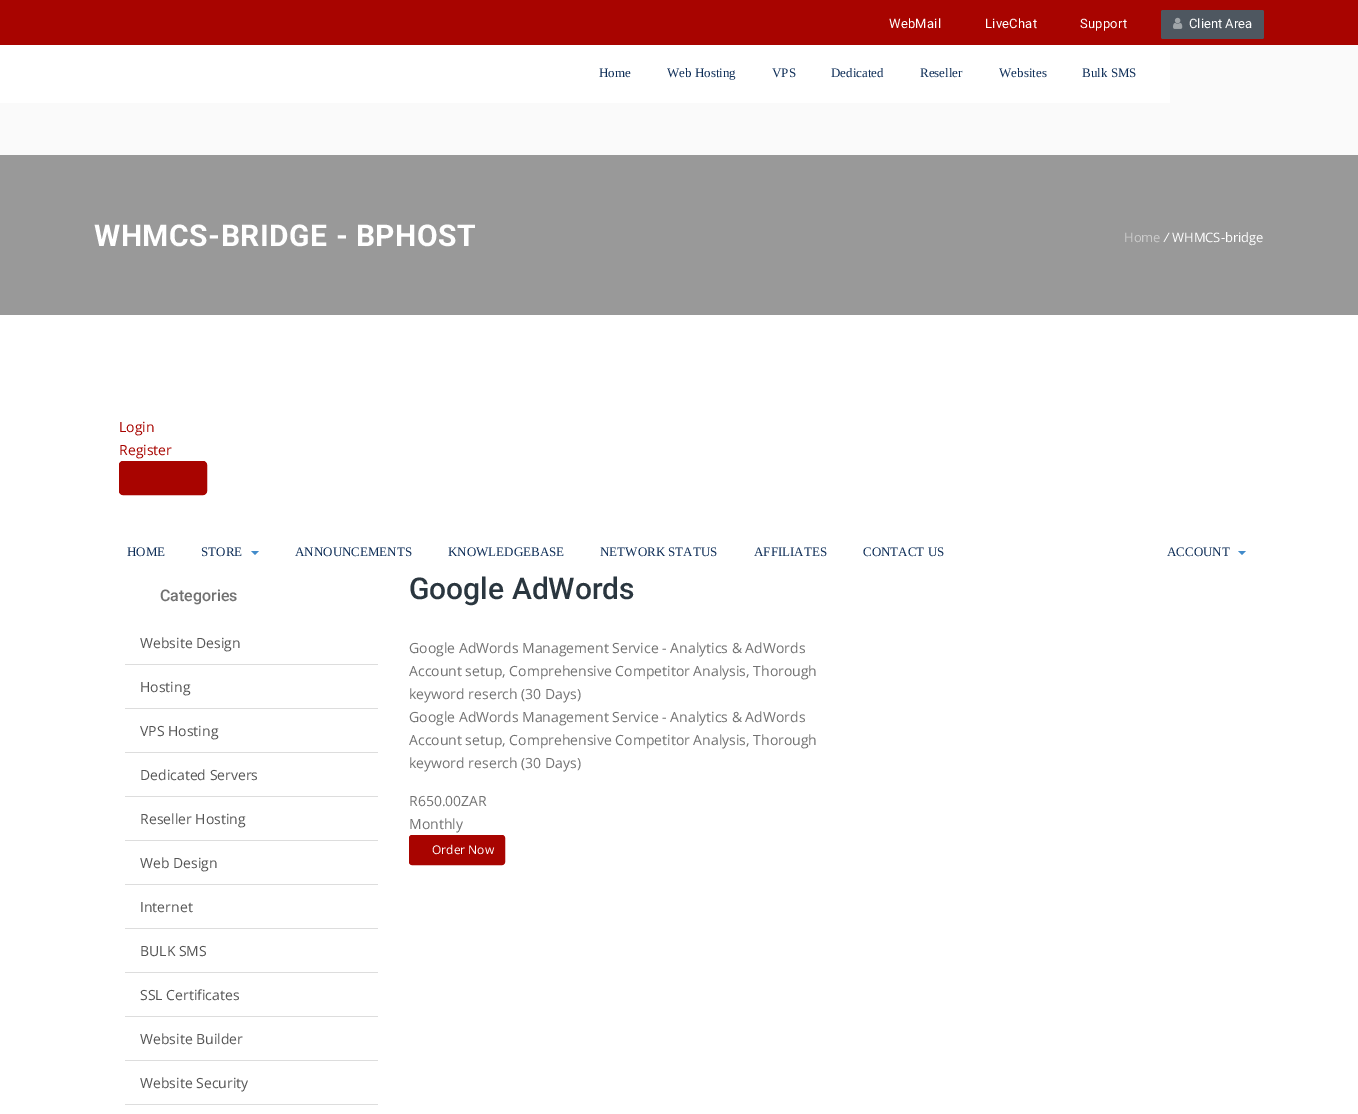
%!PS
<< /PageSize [1358 1114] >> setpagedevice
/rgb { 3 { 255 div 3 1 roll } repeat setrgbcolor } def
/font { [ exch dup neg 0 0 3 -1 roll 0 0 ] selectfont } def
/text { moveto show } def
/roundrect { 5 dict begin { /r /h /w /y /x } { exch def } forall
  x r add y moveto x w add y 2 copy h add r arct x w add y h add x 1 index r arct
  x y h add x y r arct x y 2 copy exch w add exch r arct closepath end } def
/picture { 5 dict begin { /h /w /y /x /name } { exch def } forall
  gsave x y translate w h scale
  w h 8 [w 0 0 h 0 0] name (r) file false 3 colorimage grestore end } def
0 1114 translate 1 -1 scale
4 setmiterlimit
250 250 250 rgb
0 0 1358 1114 rectfill
168 4 0 rgb
0 0 1358 45 rectfill
78 87 96 rgb
1161 10 103 29 2 roundrect fill
(img_01.rgb) 1173 17 10 12 picture
255 255 255 rgb
0 45 1170 58 rectfill
153 153 153 rgb
0 155 1358 160 rectfill
255 255 255 rgb
0 315 1358 799 rectfill
168 4 0 rgb
119.5 461.5 87 33 3.5 roundrect gsave fill grestore
stroke
66 139 202 rgb
251 551 moveto 8 0 rlineto -4 4 rlineto closepath fill
1238 551 moveto 8 0 rlineto -4 4 rlineto closepath fill
221 221 221 rgb
125 664 253 1 rectfill
125 708 253 1 rectfill
125 752 253 1 rectfill
125 796 253 1 rectfill
125 840 253 1 rectfill
125 884 253 1 rectfill
125 928 253 1 rectfill
125 972 253 1 rectfill
125 1016 253 1 rectfill
125 1060 253 1 rectfill
125 1104 253 1 rectfill
168 4 0 rgb
409.5 835.5 95 29 2.5 roundrect gsave fill grestore
stroke
/Roboto-Regular 13 font
255 255 255 rgb
889 28 moveto 0.25 0 (WebMail) ashow
985 28 moveto 0.25 0 (LiveChat) ashow
1080 28 moveto 0.25 0 (Support) ashow
(Client Area) 1189 28 text
/LiberationSerif-Regular 13 font
13 45 87 rgb
(Home) 599 77 text
(Web Hosting) 667 77 text
(VPS) 772 77 text
(Dedicated) 831 77 text
(Reseller) 920 77 text
(Websites) 999 77 text
(Bulk SMS) 1082 77 text
/Roboto-Bold 30 font
255 255 255 rgb
94 246 moveto 0.5 0 (WHMCS-BRIDGE - BPHOST) ashow
/OpenSans-Regular 13 font
204 204 204 rgb
(Home) 1124 242 text
/OpenSans-Italic 13 font
255 255 255 rgb
(/) 1164 242 text
/OpenSans-Regular 13 font
(WHMCS-bridge) 1172 242 text
/OpenSans-Regular 14 font
168 4 0 rgb
(Login) 119 432 text
(Register) 119 455 text
/LiberationSerif-Regular 13 font
13 45 87 rgb
(HOME) 127 556 text
(STORE) 201 556 text
(ANNOUNCEMENTS) 295 556 text
(KNOWLEDGEBASE) 448 556 text
(NETWORK STATUS) 600 556 text
(AFFILIATES) 754 556 text
(CONTACT US) 863 556 text
(ACCOUNT) 1167 556 text
/Roboto-Medium 16 font
114 114 114 rgb
(Categories) 160 601 text
/OpenSans-Regular 14 font
85 85 85 rgb
(Website Design) 140 648 text
(Hosting) 140 692 text
(VPS Hosting) 140 736 text
(Dedicated Servers) 140 780 text
(Reseller Hosting) 140 824 text
(Web Design) 140 868 text
(Internet) 140 912 text
(BULK SMS) 140 956 text
(SSL Certificates) 140 1000 text
(Website Builder) 140 1044 text
(Website Security) 140 1088 text
/Roboto-Medium 30 font
42 54 63 rgb
(Google AdWords) 409 599 text
/OpenSans-Regular 14 font
114 114 114 rgb
(Google AdWords Management Service - Analytics & AdWords) 409 653 text
(Account setup, Comprehensive Competitor Analysis, Thorough) 409 676 text
(keyword reserch \(30 Days\)) 409 699 text
(Google AdWords Management Service - Analytics & AdWords) 409 722 text
(Account setup, Comprehensive Competitor Analysis, Thorough) 409 745 text
(keyword reserch \(30 Days\)) 409 768 text
(R650.00ZAR) 409 806 text
(Monthly) 409 829 text
/OpenSans-Regular 12 font
255 255 255 rgb
(Order Now) 432 854 text
showpage
